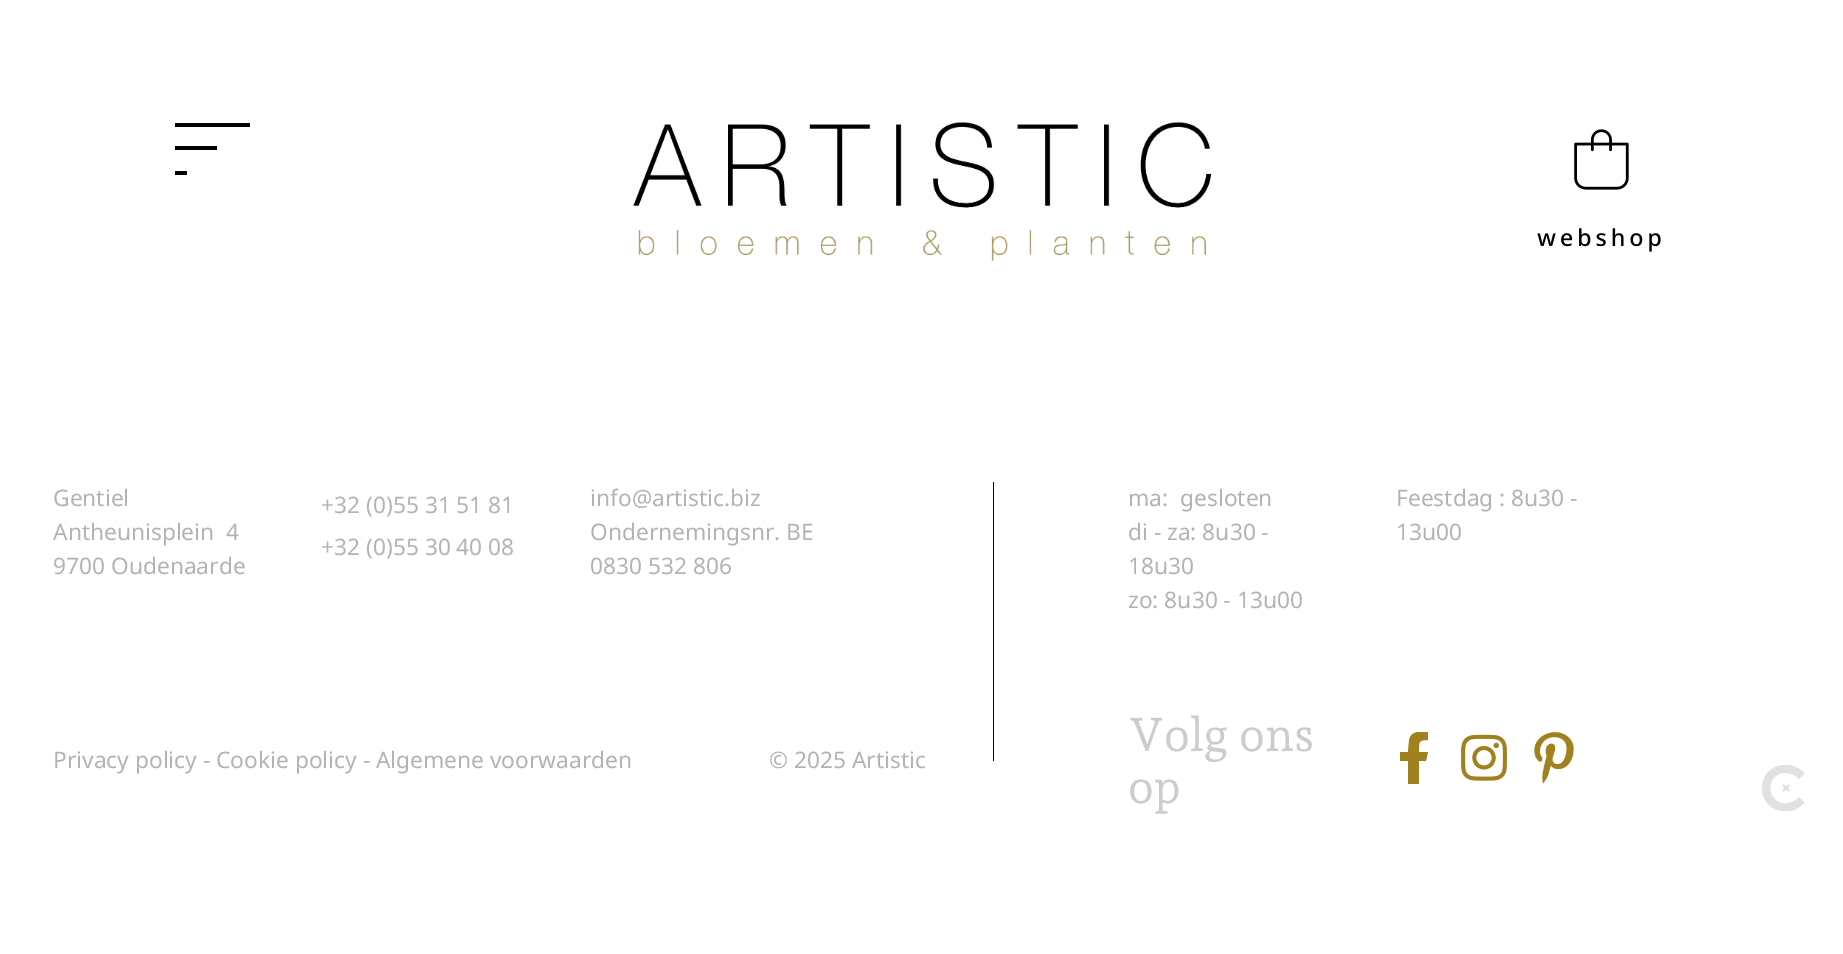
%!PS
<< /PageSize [1843 954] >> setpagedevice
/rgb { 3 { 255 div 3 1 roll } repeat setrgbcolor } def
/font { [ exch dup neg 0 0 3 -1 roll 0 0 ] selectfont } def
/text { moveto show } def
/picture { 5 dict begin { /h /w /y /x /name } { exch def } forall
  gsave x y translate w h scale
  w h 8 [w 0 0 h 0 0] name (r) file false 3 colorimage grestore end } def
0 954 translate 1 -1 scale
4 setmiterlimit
255 255 255 rgb
0 0 1843 954 rectfill
0 0 0 rgb
175 123 75 4 rectfill
175 146 42 4 rectfill
175 171 12 4 rectfill
(img_01.rgb) 633 122 578 139 picture
(img_02.rgb) 1537 129 124 123 picture
993 482 1 279 rectfill
gsave
1388 732 52 52 rectclip
161 129 29 rgb
1426 761 moveto 2 -9 rlineto -9 0 rlineto 0 -10 -1 -12 9 -12 rcurveto 0 -8 rlineto -8 -1 -18 -1 -19 9 rcurveto -1 11 rlineto -8 0 rlineto 0 9 rlineto 8 0 rlineto 0 23 rlineto 11 0 rlineto 0 -23 rlineto closepath fill
grestore
(img_03.rgb) 1461 734 46 47 picture
(img_04.rgb) 1534 732 40 52 picture
(img_05.rgb) 1762 765 43 46 picture
/NotoSans-Regular 22.75 font
179 179 179 rgb
(Gentiel) 53 506 text
53 540 moveto 6 0 32 (Antheunisplein 4) widthshow
(9700 Oudenaarde) 53 574 text
(+32 \(0\)55 31 51 81) 321 513 text
(+32 \(0\)55 30 40 08) 321 555 text
(info@artistic.biz) 590 506 text
(Ondernemingsnr. BE) 590 540 text
(0830 532 806) 590 574 text
1128 506 moveto 6 0 32 (ma: gesloten) widthshow
(di - za: 8u30 -) 1128 540 text
(18u30) 1128 574 text
(zo: 8u30 - 13u00) 1128 608 text
(Feestdag : 8u30 -) 1396 506 text
(13u00) 1396 540 text
(Privacy policy - Cookie policy - Algemene voorwaarden) 53 768 text
(© 2025 Artistic) 769 768 text
/AndadaPro-Regular 47 font
204 204 204 rgb
(Volg ons) 1128 751 text
(op) 1128 803 text
showpage
